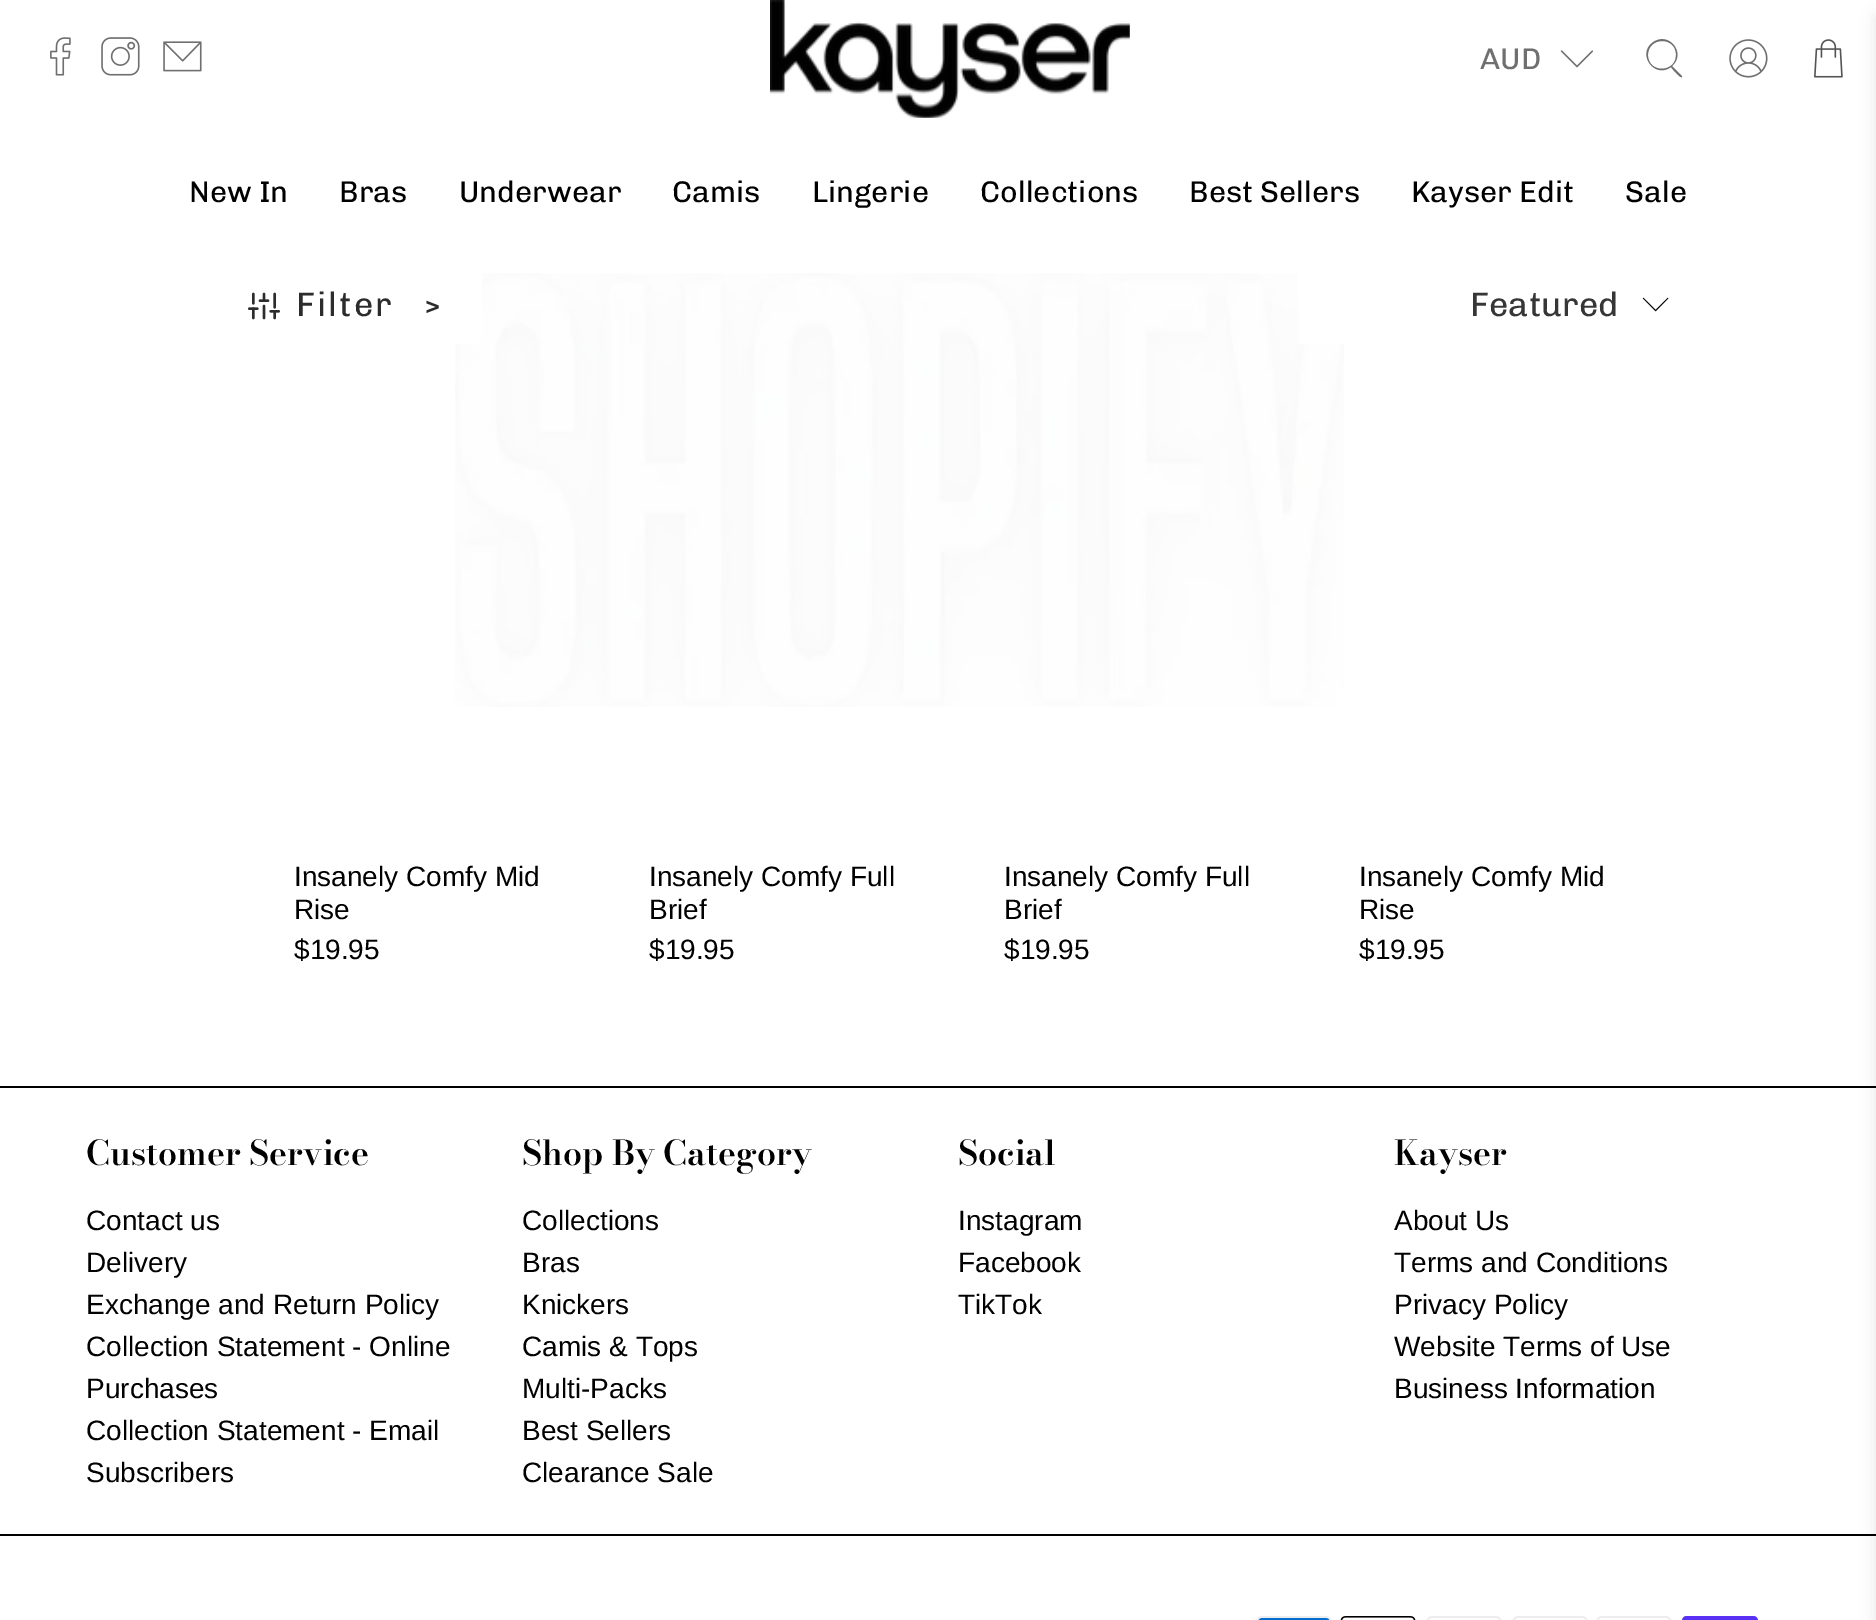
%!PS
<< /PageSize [1876 1620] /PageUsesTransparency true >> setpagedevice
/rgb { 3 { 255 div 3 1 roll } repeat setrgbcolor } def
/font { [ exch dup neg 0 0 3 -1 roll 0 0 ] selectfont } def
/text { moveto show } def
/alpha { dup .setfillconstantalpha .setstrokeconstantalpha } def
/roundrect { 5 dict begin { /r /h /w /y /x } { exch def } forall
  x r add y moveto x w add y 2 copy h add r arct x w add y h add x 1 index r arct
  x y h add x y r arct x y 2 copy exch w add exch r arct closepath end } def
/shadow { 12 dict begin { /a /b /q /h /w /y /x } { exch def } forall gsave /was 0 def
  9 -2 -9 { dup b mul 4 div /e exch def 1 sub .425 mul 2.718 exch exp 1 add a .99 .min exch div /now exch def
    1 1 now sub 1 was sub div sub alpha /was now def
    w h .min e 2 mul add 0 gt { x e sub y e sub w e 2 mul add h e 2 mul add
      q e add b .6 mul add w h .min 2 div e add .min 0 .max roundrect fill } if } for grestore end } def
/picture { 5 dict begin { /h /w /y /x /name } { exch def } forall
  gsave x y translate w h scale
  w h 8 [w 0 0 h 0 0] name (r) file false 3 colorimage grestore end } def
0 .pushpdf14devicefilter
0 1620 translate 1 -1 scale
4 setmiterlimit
255 255 255 rgb
0 0 1876 1620 rectfill
(img_01.rgb) 50 37 21 39 picture
(img_02.rgb) 101 37 39 39 picture
(img_03.rgb) 163 41 39 31 picture
(img_04.rgb) 770 0 360 118 picture
111 111 111 rgb
1593 50.5 moveto -1 0 rlineto -15 15 rlineto -15 -15 rlineto -1 0 -1.5 0.5 -1 1 rcurveto 16 16 rlineto 16 -16 rlineto closepath fill
1682 76 moveto -10 -10 rlineto 15 -13 -4 -36 -20 -23 rcurveto -15 12 3 36 19 24 rcurveto 2 3 10 12 11 10 rcurveto closepath 1648 55 moveto 0 -18 27 -19 28 -1 rcurveto 1 19 -28 20 -28 1 rcurveto closepath fill
(img_05.rgb) 1729 39 39 39 picture
(img_06.rgb) 1814 39 29 39 picture
0 0 0 rgb
0 1086 1876 2 rectfill
0 1534 1876 2 rectfill
10 10 10 rgb
1876 16 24 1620 0 8 0.1 shadow
(img_07.rgb) 455 273 889 434 picture
255 255 255 rgb
208 268 274 76 12 roundrect fill
(img_08.rgb) 248 292 32 28 picture
1298 273 46 71 rectfill
(img_09.rgb) 1642 297 27 15 picture
(img_10.rgb) 1256 1616 76 4 picture
(img_11.rgb) 1340 1616 76 4 picture
(img_12.rgb) 1426 1616 76 4 picture
(img_12.rgb) 1512 1616 76 4 picture
(img_12.rgb) 1596 1616 76 4 picture
(img_13.rgb) 1682 1616 76 4 picture
/Chivo-Regular 30 font
111 111 111 rgb
(AUD) 1480 69 text
0 0 0 rgb
(New In) 189 202 text
(Bras) 339 202 text
(Underwear) 459 202 text
(Camis) 672 202 text
(Lingerie) 812 202 text
(Collections) 980 202 text
(Best Sellers) 1189 202 text
(Kayser Edit) 1411 202 text
(Sale) 1625 202 text
/Chivo-Regular 34 font
44 44 44 rgb
296 316 moveto 2 0 (Filter) ashow
/Chivo-Bold 24 font
425 313 moveto 2 0 (>) ashow
/Chivo-Regular 34 font
54 54 54 rgb
(Featured) 1470 316 text
/LiberationSans-Regular 28 font
0 0 0 rgb
(Insanely Comfy Mid) 294 886 text
(Rise) 294 919 text
($19.95) 294 959 text
(Insanely Comfy Full) 649 886 text
(Brief) 649 919 text
($19.95) 649 959 text
(Insanely Comfy Full) 1004 886 text
(Brief) 1004 919 text
($19.95) 1004 959 text
(Insanely Comfy Mid) 1359 886 text
(Rise) 1359 919 text
($19.95) 1359 959 text
/BodoniModa-SemiBold 34 font
(Customer Service) 86 1165 text
/LiberationSans-Regular 28 font
(Contact us) 86 1230 text
(Delivery) 86 1272 text
(Exchange and Return Policy) 86 1314 text
(Collection Statement - Online) 86 1356 text
(Purchases) 86 1398 text
(Collection Statement - Email) 86 1440 text
(Subscribers) 86 1482 text
/BodoniModa-SemiBold 34 font
(Shop By Category) 522 1165 text
/LiberationSans-Regular 28 font
(Collections) 522 1230 text
(Bras) 522 1272 text
(Knickers) 522 1314 text
(Camis & Tops) 522 1356 text
(Multi-Packs) 522 1398 text
(Best Sellers) 522 1440 text
(Clearance Sale) 522 1482 text
/BodoniModa-SemiBold 34 font
(Social) 958 1165 text
/LiberationSans-Regular 28 font
(Instagram) 958 1230 text
(Facebook) 958 1272 text
(TikTok) 958 1314 text
/BodoniModa-SemiBold 34 font
(Kayser) 1394 1165 text
/LiberationSans-Regular 28 font
(About Us) 1394 1230 text
(Terms and Conditions) 1394 1272 text
(Privacy Policy) 1394 1314 text
(Website Terms of Use) 1394 1356 text
(Business Information) 1394 1398 text
.poppdf14devicefilter showpage
